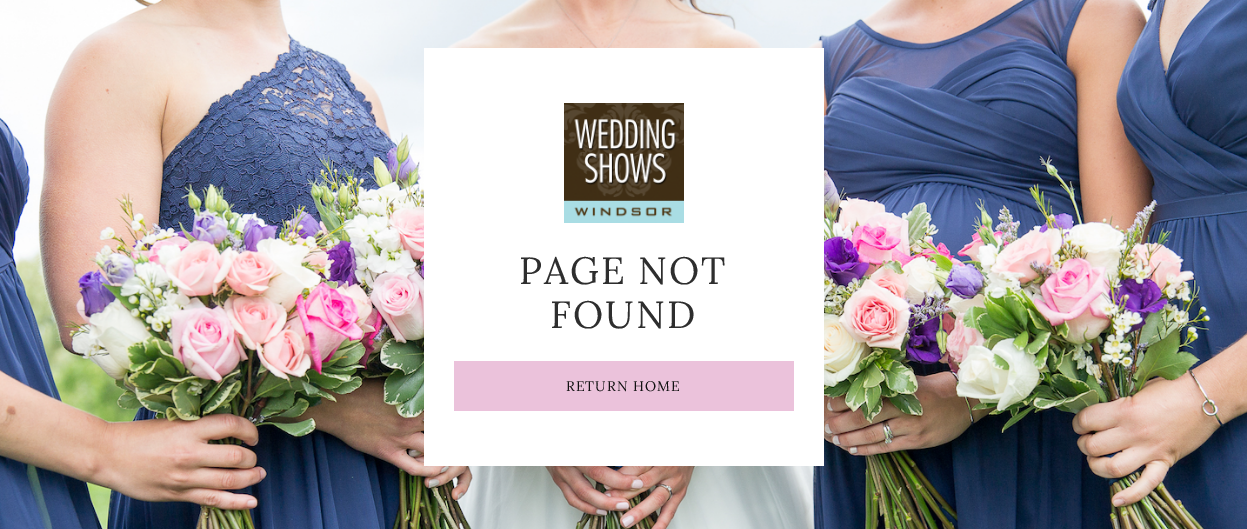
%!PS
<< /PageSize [1247 529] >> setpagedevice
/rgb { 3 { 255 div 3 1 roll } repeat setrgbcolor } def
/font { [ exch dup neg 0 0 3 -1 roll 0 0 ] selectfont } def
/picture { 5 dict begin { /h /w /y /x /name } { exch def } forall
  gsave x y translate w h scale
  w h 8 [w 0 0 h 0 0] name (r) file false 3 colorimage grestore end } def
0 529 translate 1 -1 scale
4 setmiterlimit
255 255 255 rgb
0 0 1247 529 rectfill
(img_01.rgb) 0 0 1247 529 picture
424 48 400 418 rectfill
(img_02.rgb) 564 103 120 120 picture
235 194 219 rgb
454 361 340 50 rectfill
/Lora-Regular 38 font
46 46 46 rgb
519 284 moveto 2 0 (PAGE NOT) ashow
550 328 moveto 2 0 (FOUND) ashow
/Lora-Regular 14 font
17 17 17 rgb
566 391 moveto 1 0 (RETURN HOME) ashow
showpage
